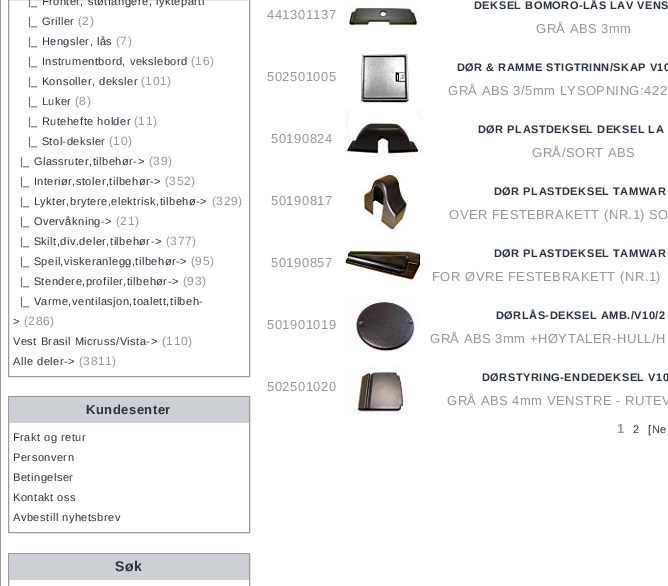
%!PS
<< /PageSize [668 586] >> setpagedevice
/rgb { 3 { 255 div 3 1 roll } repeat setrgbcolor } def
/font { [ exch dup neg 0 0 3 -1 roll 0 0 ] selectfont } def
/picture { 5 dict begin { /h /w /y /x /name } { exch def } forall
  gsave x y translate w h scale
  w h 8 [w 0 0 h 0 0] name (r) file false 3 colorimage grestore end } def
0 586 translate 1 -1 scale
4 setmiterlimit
255 255 255 rgb
0 0 668 586 rectfill
154 154 154 rgb
0 0 1 586 rectfill
8.5 -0.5 241 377 rectstroke
8.5 396.5 241 136 rectstroke
204 208 213 rgb
9 397 240 26 rectfill
154 154 154 rgb
8.5 553.5 241 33 rectstroke
204 208 213 rgb
9 554 240 26 rectfill
(img_01.rgb) 345 2 74 32 picture
(img_02.rgb) 361 48 48 56 picture
(img_03.rgb) 345 110 77 48 picture
(img_04.rgb) 361 172 48 58 picture
(img_05.rgb) 345 249 77 33 picture
(img_06.rgb) 345 296 74 56 picture
(img_07.rgb) 345 366 64 49 picture
/LiberationSans-Regular 11 font
41 50 61 rgb
28 5 moveto 0.5 0 (|_ Fronter, støtfangere, lykteparti) ashow
28 25 moveto 0.5 0 (|_ Griller) ashow
/LiberationSans-Regular 12 font
145 153 153 rgb
78 25 moveto 0.5 0 (\(2\)) ashow
/LiberationSans-Regular 11 font
41 50 61 rgb
28 45 moveto 0.5 0 (|_ Hengsler, lås) ashow
/LiberationSans-Regular 12 font
145 153 153 rgb
116 45 moveto 0.5 0 (\(7\)) ashow
/LiberationSans-Regular 11 font
41 50 61 rgb
28 65 moveto 0.5 0 (|_ Instrumentbord, vekslebord) ashow
/LiberationSans-Regular 12 font
145 153 153 rgb
191 65 moveto 0.5 0 (\(16\)) ashow
/LiberationSans-Regular 11 font
41 50 61 rgb
28 85 moveto 0.5 0 (|_ Konsoller, deksler) ashow
/LiberationSans-Regular 12 font
145 153 153 rgb
141 85 moveto 0.5 0 (\(101\)) ashow
/LiberationSans-Regular 11 font
41 50 61 rgb
28 105 moveto 0.5 0 (|_ Luker) ashow
/LiberationSans-Regular 12 font
145 153 153 rgb
75 105 moveto 0.5 0 (\(8\)) ashow
/LiberationSans-Regular 11 font
41 50 61 rgb
28 125 moveto 0.5 0 (|_ Rutehefte holder) ashow
/LiberationSans-Regular 12 font
145 153 153 rgb
134 125 moveto 0.5 0 (\(11\)) ashow
/LiberationSans-Regular 11 font
41 50 61 rgb
28 145 moveto 0.5 0 (|_ Stol-deksler) ashow
/LiberationSans-Regular 12 font
145 153 153 rgb
109 145 moveto 0.5 0 (\(10\)) ashow
/LiberationSans-Regular 11 font
41 50 61 rgb
20 165 moveto 0.5 0 (|_ Glassruter,tilbehør->) ashow
/LiberationSans-Regular 12 font
145 153 153 rgb
149 165 moveto 0.5 0 (\(39\)) ashow
/LiberationSans-Regular 11 font
41 50 61 rgb
20 185 moveto 0.5 0 (|_ Interiør,stoler,tilbehør->) ashow
/LiberationSans-Regular 12 font
145 153 153 rgb
165 185 moveto 0.5 0 (\(352\)) ashow
/LiberationSans-Regular 11 font
41 50 61 rgb
20 205 moveto 0.5 0 (|_ Lykter,brytere,elektrisk,tilbehø->) ashow
/LiberationSans-Regular 12 font
145 153 153 rgb
212 205 moveto 0.5 0 (\(329\)) ashow
/LiberationSans-Regular 11 font
41 50 61 rgb
20 225 moveto 0.5 0 (|_ Overvåkning->) ashow
/LiberationSans-Regular 12 font
145 153 153 rgb
116 225 moveto 0.5 0 (\(21\)) ashow
/LiberationSans-Regular 11 font
41 50 61 rgb
20 245 moveto 0.5 0 (|_ Skilt,div.deler,tilbehør->) ashow
/LiberationSans-Regular 12 font
145 153 153 rgb
166 245 moveto 0.5 0 (\(377\)) ashow
/LiberationSans-Regular 11 font
41 50 61 rgb
20 265 moveto 0.5 0 (|_ Speil,viskeranlegg,tilbehør->) ashow
/LiberationSans-Regular 12 font
145 153 153 rgb
191 265 moveto 0.5 0 (\(95\)) ashow
/LiberationSans-Regular 11 font
41 50 61 rgb
20 285 moveto 0.5 0 (|_ Stendere,profiler,tilbehør->) ashow
/LiberationSans-Regular 12 font
145 153 153 rgb
183 285 moveto 0.5 0 (\(93\)) ashow
/LiberationSans-Regular 11 font
41 50 61 rgb
20 305 moveto 0.5 0 (|_ Varme,ventilasjon,toalett,tilbeh-) ashow
13 325 moveto 0.5 0 (>) ashow
/LiberationSans-Regular 12 font
145 153 153 rgb
24 325 moveto 0.5 0 (\(286\)) ashow
/LiberationSans-Regular 11 font
41 50 61 rgb
13 345 moveto 0.5 0 (Vest Brasil Micruss/Vista->) ashow
/LiberationSans-Regular 12 font
145 153 153 rgb
162 345 moveto 0.5 0 (\(110\)) ashow
/LiberationSans-Regular 11 font
41 50 61 rgb
13 365 moveto 0.5 0 (Alle deler->) ashow
/LiberationSans-Regular 12 font
145 153 153 rgb
79 365 moveto 0.5 0 (\(3811\)) ashow
/LiberationSans-Bold 13 font
41 50 61 rgb
86 414 moveto 0.5 0 (Kundesenter) ashow
/LiberationSans-Regular 11 font
13 441 moveto 0.5 0 (Frakt og retur) ashow
13 461 moveto 0.5 0 (Personvern) ashow
13 481 moveto 0.5 0 (Betingelser) ashow
13 501 moveto 0.5 0 (Kontakt oss) ashow
13 521 moveto 0.5 0 (Avbestill nyhetsbrev) ashow
/LiberationSans-Bold 14 font
115 571 moveto 0.5 0 (Søk) ashow
/LiberationSans-Regular 13 font
145 153 153 rgb
267 19 moveto 0.5 0 (441301137) ashow
/LiberationSans-Bold 11 font
41 50 61 rgb
474 9 moveto 0.5 0 (DEKSEL BOMORO-LÅS LAV VENS) ashow
/LiberationSans-Regular 13 font
145 153 153 rgb
536 33 moveto 0.5 0 (GRÅ ABS 3mm) ashow
267 81 moveto 0.5 0 (502501005) ashow
/LiberationSans-Bold 11 font
41 50 61 rgb
457 71 moveto 0.5 0 (DØR & RAMME STIGTRINN/SKAP V10) ashow
/LiberationSans-Regular 13 font
145 153 153 rgb
448 95 moveto 0.5 0 (GRÅ ABS 3/5mm LYSOPNING:422) ashow
271 143 moveto 0.5 0 (50190824) ashow
/LiberationSans-Bold 11 font
41 50 61 rgb
478 133 moveto 0.5 0 (DØR PLASTDEKSEL DEKSEL LA) ashow
/LiberationSans-Regular 13 font
145 153 153 rgb
532 157 moveto 0.5 0 (GRÅ/SORT ABS) ashow
271 205 moveto 0.5 0 (50190817) ashow
/LiberationSans-Bold 11 font
41 50 61 rgb
494 195 moveto 0.5 0 (DØR PLASTDEKSEL TAMWAR) ashow
/LiberationSans-Regular 13 font
145 153 153 rgb
449 219 moveto 0.5 0 (OVER FESTEBRAKETT \(NR.1\) SO) ashow
271 267 moveto 0.5 0 (50190857) ashow
/LiberationSans-Bold 11 font
41 50 61 rgb
494 257 moveto 0.5 0 (DØR PLASTDEKSEL TAMWAR) ashow
/LiberationSans-Regular 13 font
145 153 153 rgb
432 281 moveto 0.5 0 (FOR ØVRE FESTEBRAKETT \(NR.1\)) ashow
267 329 moveto 0.5 0 (501901019) ashow
/LiberationSans-Bold 11 font
41 50 61 rgb
496 319 moveto 0.5 0 (DØRLÅS-DEKSEL AMB./V10/2) ashow
/LiberationSans-Regular 13 font
145 153 153 rgb
430 343 moveto 0.5 0 (GRÅ ABS 3mm +HØYTALER-HULL/H) ashow
267 391 moveto 0.5 0 (502501020) ashow
/LiberationSans-Bold 11 font
41 50 61 rgb
482 381 moveto 0.5 0 (DØRSTYRING-ENDEDEKSEL V10) ashow
/LiberationSans-Regular 13 font
145 153 153 rgb
447 405 moveto 0.5 0 (GRÅ ABS 4mm VENSTRE - RUTEV) ashow
/LiberationSans-Bold 13 font
617 433 moveto 0.5 0 (1) ashow
/LiberationSans-Regular 11 font
41 50 61 rgb
633 433 moveto 0.5 0 (2) ashow
648 433 moveto 0.5 0 ([Ne) ashow
showpage
